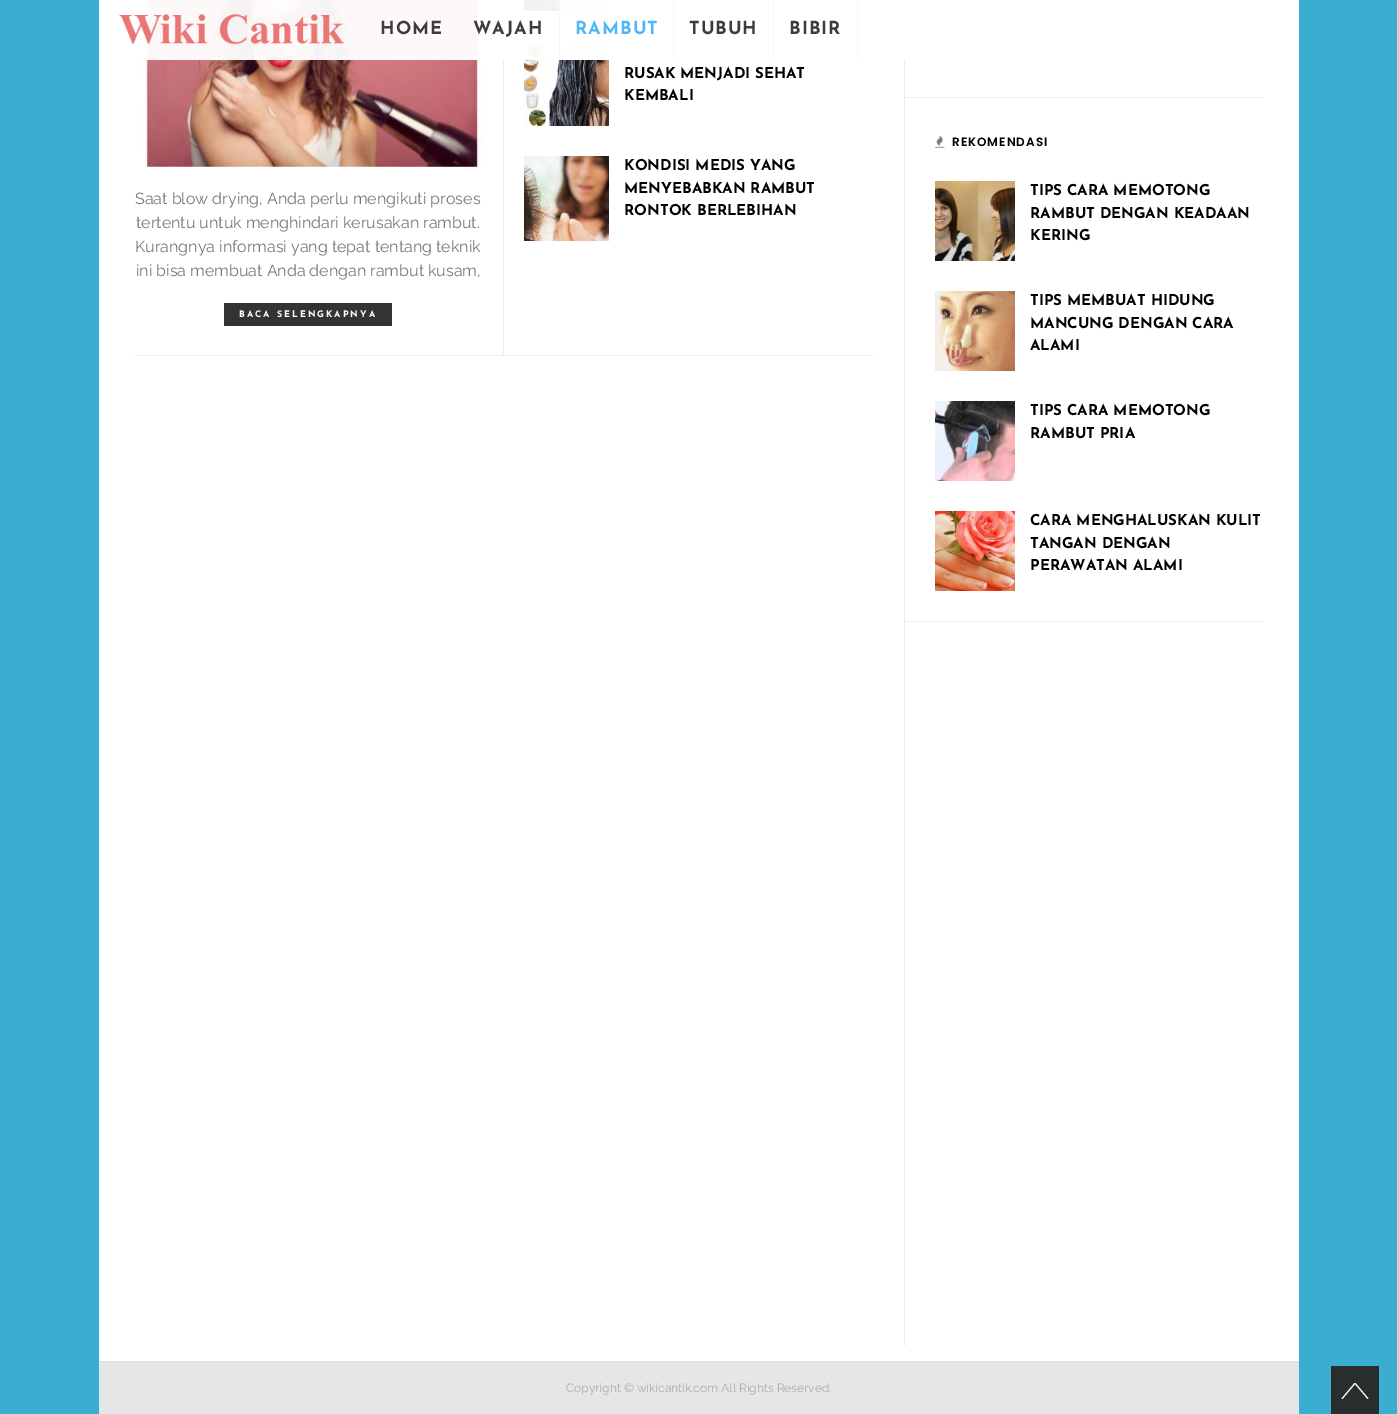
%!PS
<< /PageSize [1397 1414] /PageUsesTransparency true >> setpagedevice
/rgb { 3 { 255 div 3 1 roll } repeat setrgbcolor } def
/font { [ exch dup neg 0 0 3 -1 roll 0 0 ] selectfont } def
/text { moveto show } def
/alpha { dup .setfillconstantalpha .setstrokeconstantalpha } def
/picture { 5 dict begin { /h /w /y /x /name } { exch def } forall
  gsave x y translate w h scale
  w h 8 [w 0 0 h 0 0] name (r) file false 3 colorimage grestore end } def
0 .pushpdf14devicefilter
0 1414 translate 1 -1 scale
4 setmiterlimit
58 173 209 rgb
0 0 1397 1414 rectfill
255 255 255 rgb
99 0 1200 1361 rectfill
(img_02.rgb) 524 0 85 11 picture
(img_03.rgb) 524 41 85 85 picture
238 238 238 rgb
503 0 1 356 rectfill
(img_05.rgb) 143 0 340 167 picture
904 0 1 1346 rectfill
0.95 alpha
255 255 255 rgb
143 0 762 60 rectfill
1 alpha
(img_01.rgb) 119 14 225 31 picture
247 247 247 rgb
457 0 1 60 rectfill
364 0 1 60 rectfill
0.95 alpha
559 0 1 60 rectfill
255 255 255 rgb
560 0 49 60 rectfill
1 alpha
247 247 247 rgb
673 0 1 60 rectfill
0.95 alpha
773 0 1 60 rectfill
1 alpha
857 0 1 60 rectfill
(img_04.rgb) 524 156 85 85 picture
51 51 51 rgb
224 303 168 23 rectfill
238 238 238 rgb
134 355 740 1 rectfill
905 97 359 1 rectfill
905 621 359 1 rectfill
(img_06.rgb) 935 135 10 13 picture
(img_07.rgb) 935 181 80 80 picture
(img_08.rgb) 935 291 80 80 picture
(img_09.rgb) 935 401 80 80 picture
(img_10.rgb) 935 511 80 80 picture
230 230 230 rgb
99 1362 1200 52 rectfill
219 219 219 rgb
99 1361 1200 1 rectfill
41 45 46 rgb
1331 1366 48 48 rectfill
248 252 253 rgb
1354.5 1383 moveto 1 0.5 rlineto -13 15.5 rlineto -1 -0.5 rlineto closepath fill
1354.5 1383.5 moveto 1 -0.5 rlineto 13 15.5 rlineto -1 0.5 rlineto closepath fill
/JosefinSans-Bold 18 font
61 61 61 rgb
380 34 moveto 1 0 (HOME) ashow
473 34 moveto 1 0 (WAJAH) ashow
80 182 246 rgb
575 34 moveto 1 0 (RAMBUT) ashow
61 61 61 rgb
689 34 moveto 1 0 (TUBUH) ashow
789 34 moveto 1 0 (BIBIR) ashow
/JosefinSans-Bold 15 font
0 0 0 rgb
(RUSAK MENJADI SEHAT) 624 78 text
(KEMBALI) 624 100 text
(KONDISI MEDIS YANG) 624 170 text
(MENYEBABKAN RAMBUT) 624 193 text
(RONTOK BERLEBIHAN) 624 215 text
/Raleway-Regular 16 font
119 119 119 rgb
(Saat blow drying, Anda perlu mengikuti proses) 135 204 text
(tertentu untuk menghindari kerusakan rambut.) 136 228 text
(Kurangnya informasi yang tepat tentang teknik) 135 252 text
(ini bisa membuat Anda dengan rambut kusam,) 136 276 text
/JosefinSans-Bold 9 font
255 255 255 rgb
239 317 moveto 2 0 (BACA SELENGKAPNYA) ashow
/Poppins-SemiBold 12 font
0 0 0 rgb
952 146 moveto 1 0 (REKOMENDASI) ashow
/JosefinSans-Bold 15 font
(TIPS CARA MEMOTONG) 1030 195 text
(RAMBUT DENGAN KEADAAN) 1030 218 text
(KERING) 1030 240 text
(TIPS MEMBUAT HIDUNG) 1030 305 text
(MANCUNG DENGAN CARA) 1030 328 text
(ALAMI) 1030 350 text
(TIPS CARA MEMOTONG) 1030 415 text
(RAMBUT PRIA) 1030 438 text
(CARA MENGHALUSKAN KULIT) 1030 525 text
(TANGAN DENGAN) 1030 548 text
(PERAWATAN ALAMI) 1030 570 text
/Raleway-Regular 12 font
170 170 170 rgb
(Copyright © wikicantik.com All Rights Reserved.) 566 1392 text
.poppdf14devicefilter showpage
